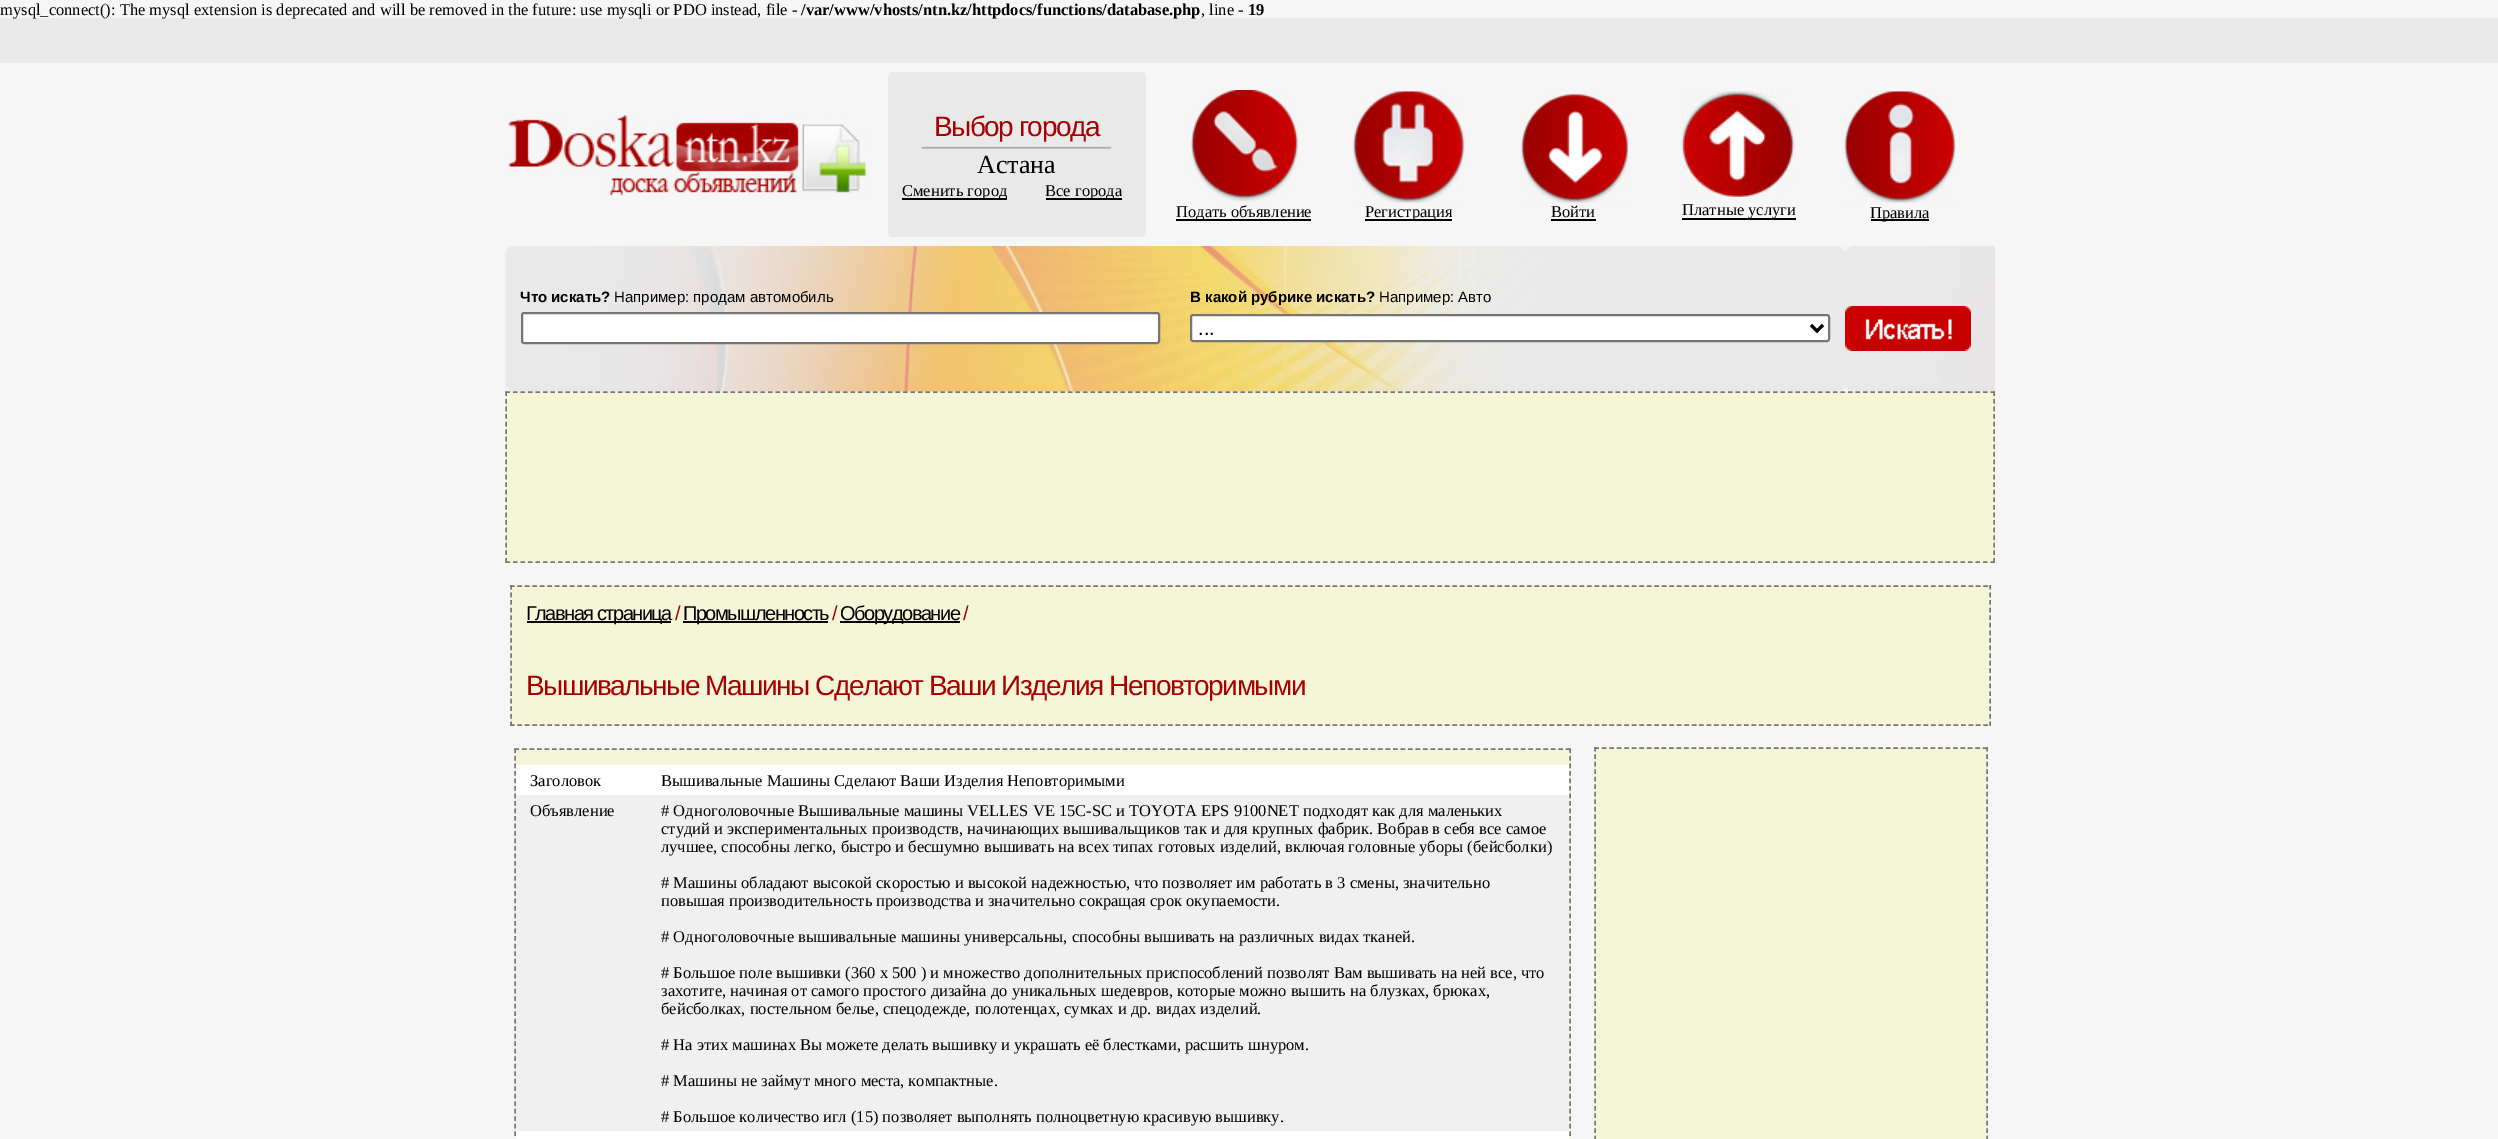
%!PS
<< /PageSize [2498 1139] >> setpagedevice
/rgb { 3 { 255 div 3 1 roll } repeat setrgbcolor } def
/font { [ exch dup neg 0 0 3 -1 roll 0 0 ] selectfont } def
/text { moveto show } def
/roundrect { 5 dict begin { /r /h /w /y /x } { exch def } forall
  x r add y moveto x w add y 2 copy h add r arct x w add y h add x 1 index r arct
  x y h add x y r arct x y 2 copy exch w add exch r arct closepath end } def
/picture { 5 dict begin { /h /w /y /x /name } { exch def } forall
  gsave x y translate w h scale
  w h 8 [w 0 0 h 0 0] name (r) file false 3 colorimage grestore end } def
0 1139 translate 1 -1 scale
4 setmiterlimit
246 246 246 rgb
0 0 2498 1139 rectfill
233 233 233 rgb
0 18 2498 45 rectfill
(img_01.rgb) 508 115 358 81 picture
(img_02.rgb) 888 72 258 165 picture
(img_03.rgb) 921 146 191 3 picture
0 0 0 rgb
902 198 105 2 rectfill
1046 198 76 2 rectfill
(img_04.rgb) 1190 90 108 112 picture
1176 219 135 2 rectfill
(img_05.rgb) 1352 91 113 112 picture
1365 219 87 2 rectfill
(img_06.rgb) 1520 94 109 109 picture
1551 219 45 2 rectfill
(img_07.rgb) 1681 91 114 106 picture
1682 218 114 2 rectfill
(img_08.rgb) 1844 91 112 112 picture
1871 219 58 2 rectfill
(img_09.rgb) 505 246 1490 146 picture
255 255 255 rgb
522 313 637 30 2 roundrect gsave fill grestore
118 118 118 rgb
2 setlinewidth
stroke
255 255 255 rgb
1191 315 638 26 2 roundrect gsave fill grestore
118 118 118 rgb
stroke
0 0 0 rgb
3 setlinewidth
1811 325 moveto 6 6 rlineto 6 -6 rlineto stroke
(img_10.rgb) 1845 306 126 45 picture
245 245 215 rgb
506 392 1489 171 rectfill
119 119 119 rgb
1.5 setlinewidth
[4.5 3] 0 setdash
505.5 392 moveto 1489.5 0 rlineto stroke
[4.5 3.07] 0 setdash
1994 391.5 moveto 0 171 rlineto stroke
[4.5 3] 0 setdash
505.5 562 moveto 1489.5 0 rlineto stroke
[4.5 3.07] 0 setdash
506 391.5 moveto 0 171 rlineto stroke
245 245 215 rgb
510 585 1481 141 rectfill
119 119 119 rgb
[4.5 2.98] 0 setdash
510 586 moveto 1480.5 0 rlineto stroke
[4.5 3.09] 0 setdash
1990 585 moveto 0 141 rlineto stroke
[4.5 2.98] 0 setdash
510 725 moveto 1480.5 0 rlineto stroke
[4.5 3.09] 0 setdash
511 585 moveto 0 141 rlineto stroke
0 0 0 rgb
527 621 144 2 rectfill
683 621 145 2 rectfill
840 621 120 2 rectfill
245 245 215 rgb
515 749 1056 390 rectfill
119 119 119 rgb
[4.5 3.01] 0 setdash
514.5 749 moveto 1056 0 rlineto stroke
1570 748.5 moveto 0 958.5 rlineto stroke
515 748.5 moveto 0 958.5 rlineto stroke
255 255 255 rgb
516 765 1053 30 rectfill
240 240 240 rgb
516 795 1053 336 rectfill
255 255 255 rgb
516 1131 1053 8 rectfill
245 245 215 rgb
1595 747 393 392 rectfill
119 119 119 rgb
[4.5 2.97] 0 setdash
1594.5 748 moveto 393 0 rlineto stroke
[4.5 2.98] 0 setdash
1987 747 moveto 0 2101.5 rlineto stroke
1595 747 moveto 0 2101.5 rlineto stroke
/LiberationSerif-Regular 16.5 font
0 0 0 rgb
(mysql_connect\(\): The mysql extension is deprecated and will be removed in the future: use mysqli or PDO instead, file -) 0 15 text
/LiberationSerif-Bold 16.5 font
(/var/www/vhosts/ntn.kz/httpdocs/functions/database.php) 801 15 text
/LiberationSerif-Regular 16.5 font
(, line -) 1201 15 text
/LiberationSerif-Bold 16.5 font
(19) 1248 15 text
/LiberationSans-Regular 28 font
167 0 0 rgb
934 136 moveto -1.5 0 (Выбор города) ashow
/LiberationSerif-Regular 26 font
0 0 0 rgb
(Астана) 977 173 text
/LiberationSerif-Regular 16.5 font
(Сменить город) 902 196 text
(Все города) 1045 196 text
(Подать объявление) 1176 217 text
(Регистрация) 1365 217 text
(Войти) 1551 217 text
(Платные услуги) 1682 215 text
(Правила) 1870 218 text
/LiberationSans-Bold 15 font
(Что искать?) 520 302 text
/LiberationSans-Regular 15 font
(Например: продам автомобиль) 614 302 text
/LiberationSans-Bold 15 font
(В какой рубрике искать?) 1190 302 text
/LiberationSans-Regular 15 font
(Например: Авто) 1379 302 text
/LiberationSans-Regular 20 font
(...) 1198 335 text
526 620 moveto -1.5 0 (Главная страница) ashow
167 0 0 rgb
675 620 moveto -1.5 0 (/) ashow
0 0 0 rgb
683 620 moveto -1.5 0 (Промышленность) ashow
167 0 0 rgb
832 620 moveto -1.5 0 (/) ashow
0 0 0 rgb
840 620 moveto -1.5 0 (Оборудование) ashow
167 0 0 rgb
963 620 moveto -1.5 0 (/) ashow
/LiberationSans-Regular 28 font
526 695 moveto -1.5 0 (Вышивальные Машины Сделают Ваши Изделия Неповторимыми) ashow
/LiberationSerif-Regular 16.5 font
0 0 0 rgb
(Заголовок) 530 786 text
(Вышивальные Машины Сделают Ваши Изделия Неповторимыми) 661 786 text
(Объявление) 530 816 text
(# Одноголовочные Вышивальные машины VELLES VE 15C-SC и TOYOTA EPS 9100NET подходят как для маленьких) 661 816 text
(студий и экспериментальных производств, начинающих вышивальщиков так и для крупных фабрик. Вобрав в себя все самое) 661 834 text
(лучшее, способны легко, быстро и бесшумно вышивать на всех типах готовых изделий, включая головные уборы \(бейсболки\)) 661 852 text
(# Машины обладают высокой скоростью и высокой надежностью, что позволяет им работать в 3 смены, значительно) 661 888 text
(повышая производительность производства и значительно сокращая срок окупаемости.) 661 906 text
(# Одноголовочные вышивальные машины универсальны, способны вышивать на различных видах тканей.) 661 942 text
(# Большое поле вышивки \(360 х 500 \) и множество дополнительных приспособлений позволят Вам вышивать на ней все, что) 661 978 text
(захотите, начиная от самого простого дизайна до уникальных шедевров, которые можно вышить на блузках, брюках,) 661 996 text
(бейсболках, постельном белье, спецодежде, полотенцах, сумках и др. видах изделий.) 661 1014 text
(# На этих машинах Вы можете делать вышивку и украшать её блестками, расшить шнуром.) 661 1050 text
(# Машины не займут много места, компактные.) 661 1086 text
(# Большое количество игл \(15\) позволяет выполнять полноцветную красивую вышивку.) 661 1122 text
showpage
